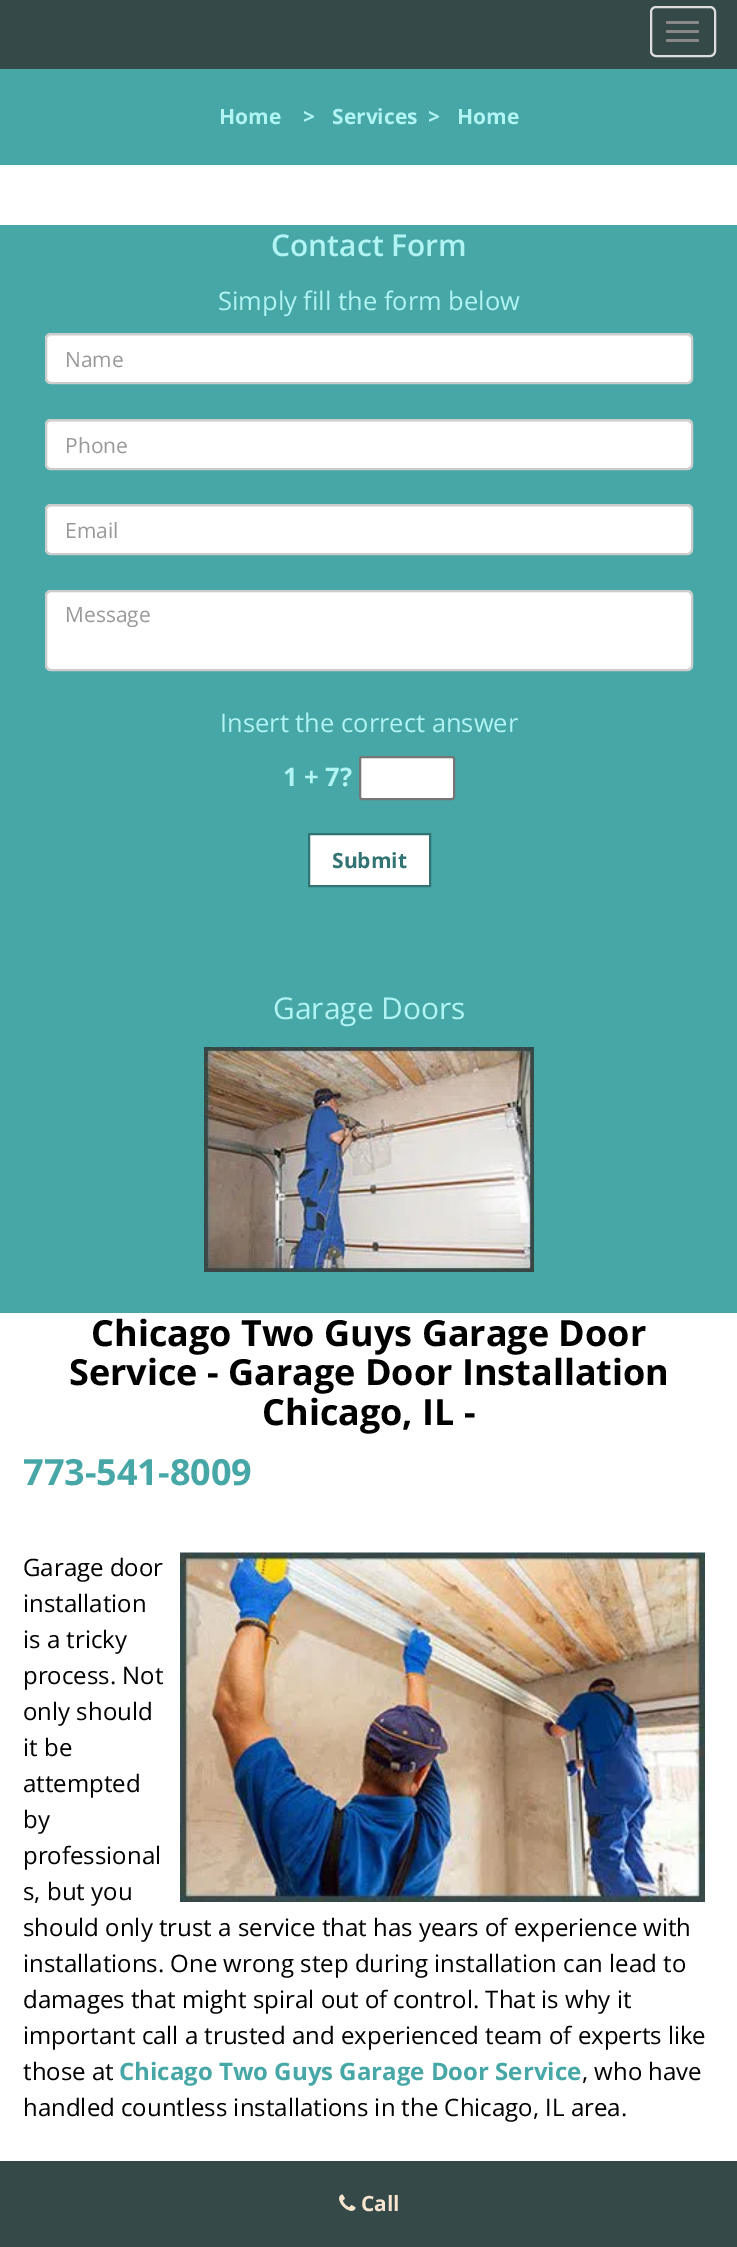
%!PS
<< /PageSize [737 2247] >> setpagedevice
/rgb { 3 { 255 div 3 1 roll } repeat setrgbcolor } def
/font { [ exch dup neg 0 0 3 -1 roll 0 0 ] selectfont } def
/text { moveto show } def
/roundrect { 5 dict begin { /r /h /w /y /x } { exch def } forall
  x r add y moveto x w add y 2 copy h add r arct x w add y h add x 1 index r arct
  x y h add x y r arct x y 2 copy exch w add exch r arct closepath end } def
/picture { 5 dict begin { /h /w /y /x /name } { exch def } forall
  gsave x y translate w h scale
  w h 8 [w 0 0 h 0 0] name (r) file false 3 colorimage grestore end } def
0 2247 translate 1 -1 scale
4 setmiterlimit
255 255 255 rgb
0 0 737 2247 rectfill
53 73 73 rgb
0 0 737 69 rectfill
221 221 221 rgb
2 setlinewidth
651 7 64 49 5 roundrect stroke
136 136 136 rgb
666 21 33 3 1.5 roundrect fill
666 30 33 3 1.5 roundrect fill
666 39 33 3 1.5 roundrect fill
71 167 167 rgb
0 69 737 96 rectfill
0 225 737 1088 rectfill
255 255 255 rgb
45 333 648 51 6 roundrect fill
236 236 236 rgb
51 336 moveto 636 0 rlineto 2 0 5 2 5 4 rcurveto 0 -3 -2 -5 -5 -5 rcurveto -636 0 rlineto -3 2 rlineto closepath fill
204 204 204 rgb
46 334 646 49 5 roundrect stroke
255 255 255 rgb
45 419 648 51 6 roundrect fill
236 236 236 rgb
51 422 moveto 636 0 rlineto 2 0 5 2 5 4 rcurveto 0 -1 rlineto 0 -3 -2 -5 -5 -5 rcurveto -635 0 rlineto -2 0 -4 2 -5 4 rcurveto 1 -1 3 -2 4 -2 rcurveto closepath fill
204 204 204 rgb
46 420 646 49 5 roundrect stroke
255 255 255 rgb
45 504 648 51 6 roundrect fill
236 236 236 rgb
51 507 moveto 636 0 rlineto 2 0 5 2 5 5 rcurveto 0 -1 rlineto 0 -3 -2 -5 -5 -5 rcurveto -635 0 rlineto -2 0 -3 1 -4 2 rcurveto closepath fill
204 204 204 rgb
46 505 646 49 5 roundrect stroke
255 255 255 rgb
45 590 648 81 6 roundrect fill
236 236 236 rgb
51 592 moveto 636 0 rlineto 2 0 5 3 5 5 rcurveto 0 -1 rlineto 0 -3 -2 -5 -5 -5 rcurveto -635 0 rlineto -2 0 -4 1 -5 3 rcurveto 1 -1 3 -2 4 -2 rcurveto closepath fill
204 204 204 rgb
46 591 646 79 5 roundrect stroke
255 255 255 rgb
360 757 94 42 2 roundrect gsave fill grestore
118 118 118 rgb
stroke
255 255 255 rgb
309 834 moveto 121 0 rlineto 0 52 rlineto -121 0 rlineto closepath gsave fill grestore
50 116 116 rgb
stroke
(img_01.rgb) 204 1047 330 225 picture
(img_02.rgb) 180 1552 525 350 picture
53 73 73 rgb
0 2161 737 86 rectfill
(img_03.rgb) 339 2194 17 17 picture
/OpenSans-Bold 21 font
177 244 244 rgb
(Home) 219 124 text
(>) 303 124 text
(Services) 332 124 text
(>) 428 124 text
(Home) 457 124 text
/OpenSans-SemiBold 30 font
(Contact Form) 271 256 text
/OpenSans-Regular 25.5 font
(Simply fill the form below) 218 310 text
/OpenSans-Regular 21 font
153 153 153 rgb
(Name) 65 367 text
(Phone) 65 453 text
(Email) 65 538 text
(Message) 65 622 text
/OpenSans-Regular 25.5 font
177 244 244 rgb
(Insert the correct answer) 220 732 text
/OpenSans-Bold 25.5 font
(1 + 7?) 283 786 text
/OpenSans-Bold 21 font
50 116 116 rgb
(Submit) 332 868 text
/OpenSans-Regular 30 font
177 244 244 rgb
(Garage Doors) 273 1019 text
/OpenSans-Bold 36 font
0 0 0 rgb
(Chicago Two Guys Garage Door) 91 1346 text
(Service - Garage Door Installation) 69 1385 text
(Chicago, IL -) 262 1425 text
71 167 167 rgb
(773-541-8009) 23 1485 text
/OpenSans-Regular 24 font
0 0 0 rgb
(Garage door) 23 1576 text
(installation) 23 1612 text
(is a tricky) 23 1648 text
(process. Not) 23 1684 text
(only should) 23 1720 text
(it be) 23 1756 text
(attempted) 23 1792 text
(by) 23 1828 text
(professional) 23 1864 text
(s, but you) 23 1900 text
(should only trust a service that has years of experience with) 23 1936 text
(installations. One wrong step during installation can lead to) 23 1972 text
(damages that might spiral out of control. That is why it) 23 2008 text
(important call a trusted and experienced team of experts like) 23 2044 text
(those at) 23 2080 text
/OpenSans-Bold 24 font
71 167 167 rgb
(Chicago Two Guys Garage Door Service) 119 2080 text
/OpenSans-Regular 24 font
0 0 0 rgb
(, who have) 582 2080 text
(handled countless installations in the Chicago, IL area.) 23 2116 text
/OpenSans-Bold 21 font
249 229 207 rgb
(Call) 361 2211 text
showpage
